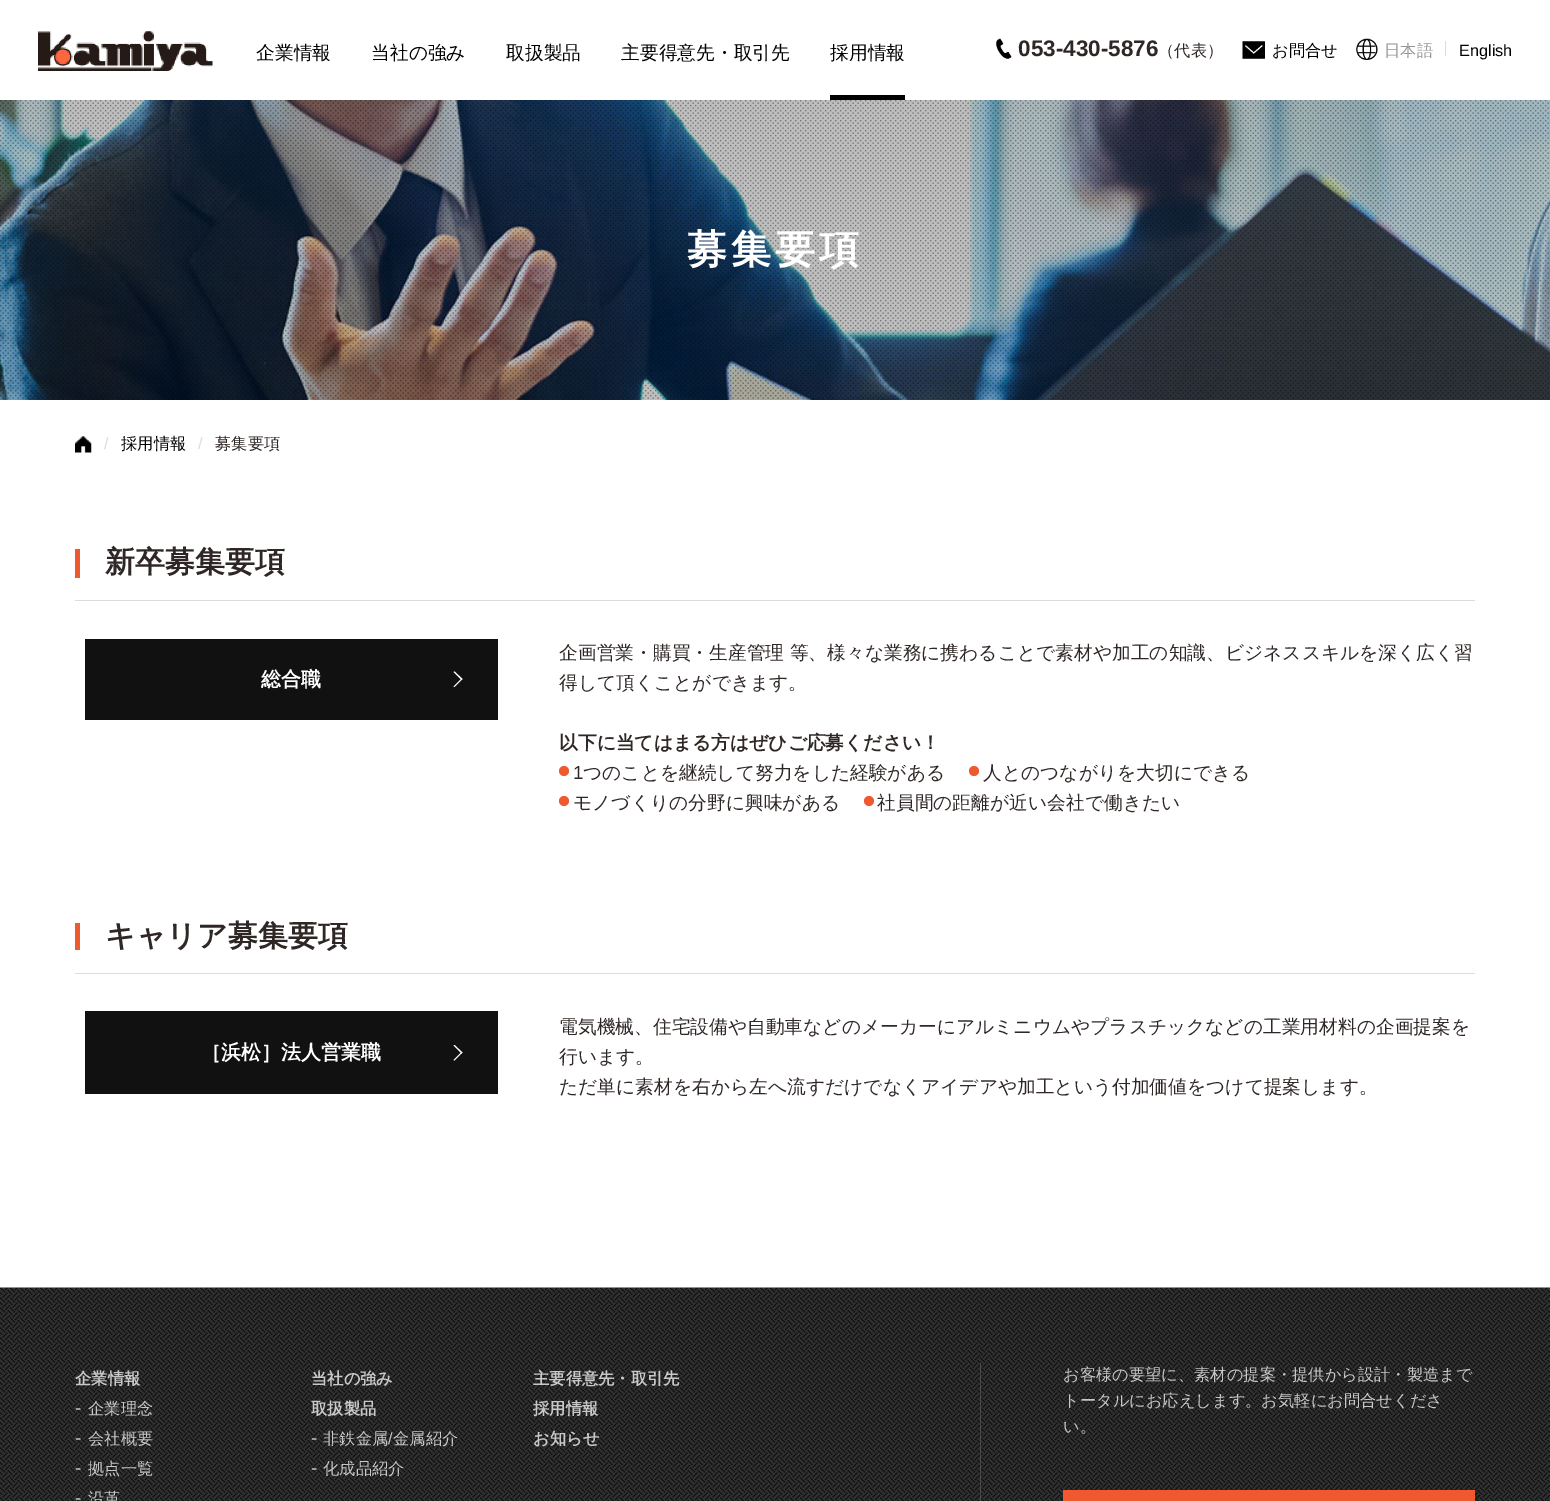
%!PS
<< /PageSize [1550 1501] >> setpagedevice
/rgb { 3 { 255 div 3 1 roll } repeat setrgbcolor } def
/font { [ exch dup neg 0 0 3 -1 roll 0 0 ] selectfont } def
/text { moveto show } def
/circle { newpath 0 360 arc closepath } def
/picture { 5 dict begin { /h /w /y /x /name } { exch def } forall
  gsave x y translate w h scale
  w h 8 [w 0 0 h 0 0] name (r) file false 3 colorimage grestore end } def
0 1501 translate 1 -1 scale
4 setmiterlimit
255 255 255 rgb
0 0 1550 1501 rectfill
(img_01.rgb) 38 31 175 40 picture
0 0 0 rgb
830 95 75 5 rectfill
(img_02.rgb) 996 38 16 21 picture
(img_03.rgb) 1242 41 23 18 picture
(img_04.rgb) 1356 38 22 22 picture
220 220 220 rgb
1445 41 1 15 rectfill
(img_05.rgb) 0 100 1550 300 picture
(img_06.rgb) 0 100 1550 300 picture
(img_07.rgb) 75 436 17 17 picture
75 600 1400 1 rectfill
240 89 48 rgb
75 549 5 29 rectfill
17 17 17 rgb
85 639 413 81 rectfill
255 255 255 rgb
454.5 671.5 moveto 8 7.5 rlineto -1 1 rlineto -8 -8 rlineto closepath fill
461.5 678.5 moveto 1 0.5 rlineto -8 8 rlineto -1 -0.5 rlineto closepath fill
240 89 48 rgb
564 771 5 circle fill
974 771 5 circle fill
564 801 5 circle fill
869 801 5 circle fill
220 220 220 rgb
75 973 1400 1 rectfill
240 89 48 rgb
75 923 5 27 rectfill
17 17 17 rgb
85 1011 413 83 rectfill
255 255 255 rgb
454.5 1045 moveto 8 7.5 rlineto -1 1 rlineto -8 -8 rlineto closepath fill
461.5 1052 moveto 1 0.5 rlineto -8 8 rlineto -1 -0.5 rlineto closepath fill
(img_08.rgb) 0 1287 1550 214 picture
75 75 75 rgb
980 1363 1 138 rectfill
240 89 48 rgb
1063 1490 412 11 rectfill
/WenQuanYiZenHei-Medium 18.75 font
0 0 0 rgb
(企業情報) 256 59 text
(当社の強み) 371 59 text
(取扱製品) 506 59 text
(主要得意先・取引先) 621 59 text
(採用情報) 830 59 text
/LiberationSans-Bold 22.5 font
47 39 37 rgb
(053-430-5876) 1018 56 text
/WenQuanYiZenHei-Medium 16.25 font
(（代表）) 1158 56 text
0 0 0 rgb
(お問合せ) 1272 56 text
150 150 150 rgb
(日本語) 1384 56 text
/LiberationSans-Regular 16.25 font
0 0 0 rgb
(English) 1459 56 text
/WenQuanYiZenHei-Bold 40 font
255 255 255 rgb
687 263 moveto 4 0 (募集要項) ashow
/LiberationSans-Regular 16.25 font
220 220 220 rgb
(/) 104 449 text
/WenQuanYiZenHei-Medium 16.25 font
0 0 0 rgb
(採用情報) 121 449 text
/LiberationSans-Regular 16.25 font
220 220 220 rgb
(/) 198 449 text
/WenQuanYiZenHei-Medium 16.25 font
47 39 37 rgb
(募集要項) 215 449 text
/WenQuanYiZenHei-Bold 30 font
(新卒募集要項) 105 572 text
/WenQuanYiZenHei-Bold 20 font
255 255 255 rgb
(総合職) 261 686 text
/WenQuanYiZenHei-Medium 18.75 font
47 39 37 rgb
(企画営業・購買・生産管理 等、様々な業務に携わることで素材や加工の知識、ビジネススキルを深く広く習) 559 659 text
(得して頂くことができます。) 559 689 text
/WenQuanYiZenHei-Bold 18.75 font
(以下に当てはまる方はぜひご応募ください！) 559 749 text
/LiberationSans-Regular 18.75 font
(1) 573 779 text
/WenQuanYiZenHei-Medium 18.75 font
(つのことを継続して努力をした経験がある) 583 779 text
(人とのつながりを大切にできる) 983 779 text
(モノづくりの分野に興味がある) 573 809 text
(社員間の距離が近い会社で働きたい) 877 809 text
/WenQuanYiZenHei-Bold 30 font
(キャリア募集要項) 105 946 text
/WenQuanYiZenHei-Bold 20 font
255 255 255 rgb
(［浜松］法人営業職) 201 1059 text
/WenQuanYiZenHei-Medium 18.75 font
47 39 37 rgb
(電気機械、住宅設備や自動車などのメーカーにアルミニウムやプラスチックなどの工業用材料の企画提案を) 559 1033 text
(行います。) 559 1063 text
(ただ単に素材を右から左へ流すだけでなくアイデアや加工という付加価値をつけて提案します。) 559 1093 text
/WenQuanYiZenHei-Bold 16.25 font
200 200 200 rgb
(企業情報) 75 1384 text
/LiberationSans-Regular 18.75 font
(-) 75 1414 text
/WenQuanYiZenHei-Medium 16.25 font
(企業理念) 88 1414 text
/LiberationSans-Regular 18.75 font
(-) 75 1444 text
/WenQuanYiZenHei-Medium 16.25 font
(会社概要) 88 1444 text
/LiberationSans-Regular 18.75 font
(-) 75 1474 text
/WenQuanYiZenHei-Medium 16.25 font
(拠点一覧) 88 1474 text
/LiberationSans-Regular 18.75 font
(-) 75 1504 text
/WenQuanYiZenHei-Medium 16.25 font
(沿革) 88 1504 text
/WenQuanYiZenHei-Bold 16.25 font
(当社の強み) 311 1384 text
(取扱製品) 311 1414 text
/LiberationSans-Regular 18.75 font
(-) 311 1444 text
/WenQuanYiZenHei-Medium 16.25 font
(非鉄金属) 323 1444 text
/LiberationSans-Regular 16.25 font
(/) 388 1444 text
/WenQuanYiZenHei-Medium 16.25 font
(金属紹介) 393 1444 text
/LiberationSans-Regular 18.75 font
(-) 311 1474 text
/WenQuanYiZenHei-Medium 16.25 font
(化成品紹介) 323 1474 text
/WenQuanYiZenHei-Bold 16.25 font
(主要得意先・取引先) 533 1384 text
(採用情報) 533 1414 text
(お知らせ) 533 1444 text
/WenQuanYiZenHei-Medium 16.25 font
(お客様の要望に、素材の提案・提供から設計・製造まで) 1063 1380 text
(トータルにお応えします。お気軽にお問合せくださ) 1063 1406 text
(い。) 1063 1432 text
showpage
